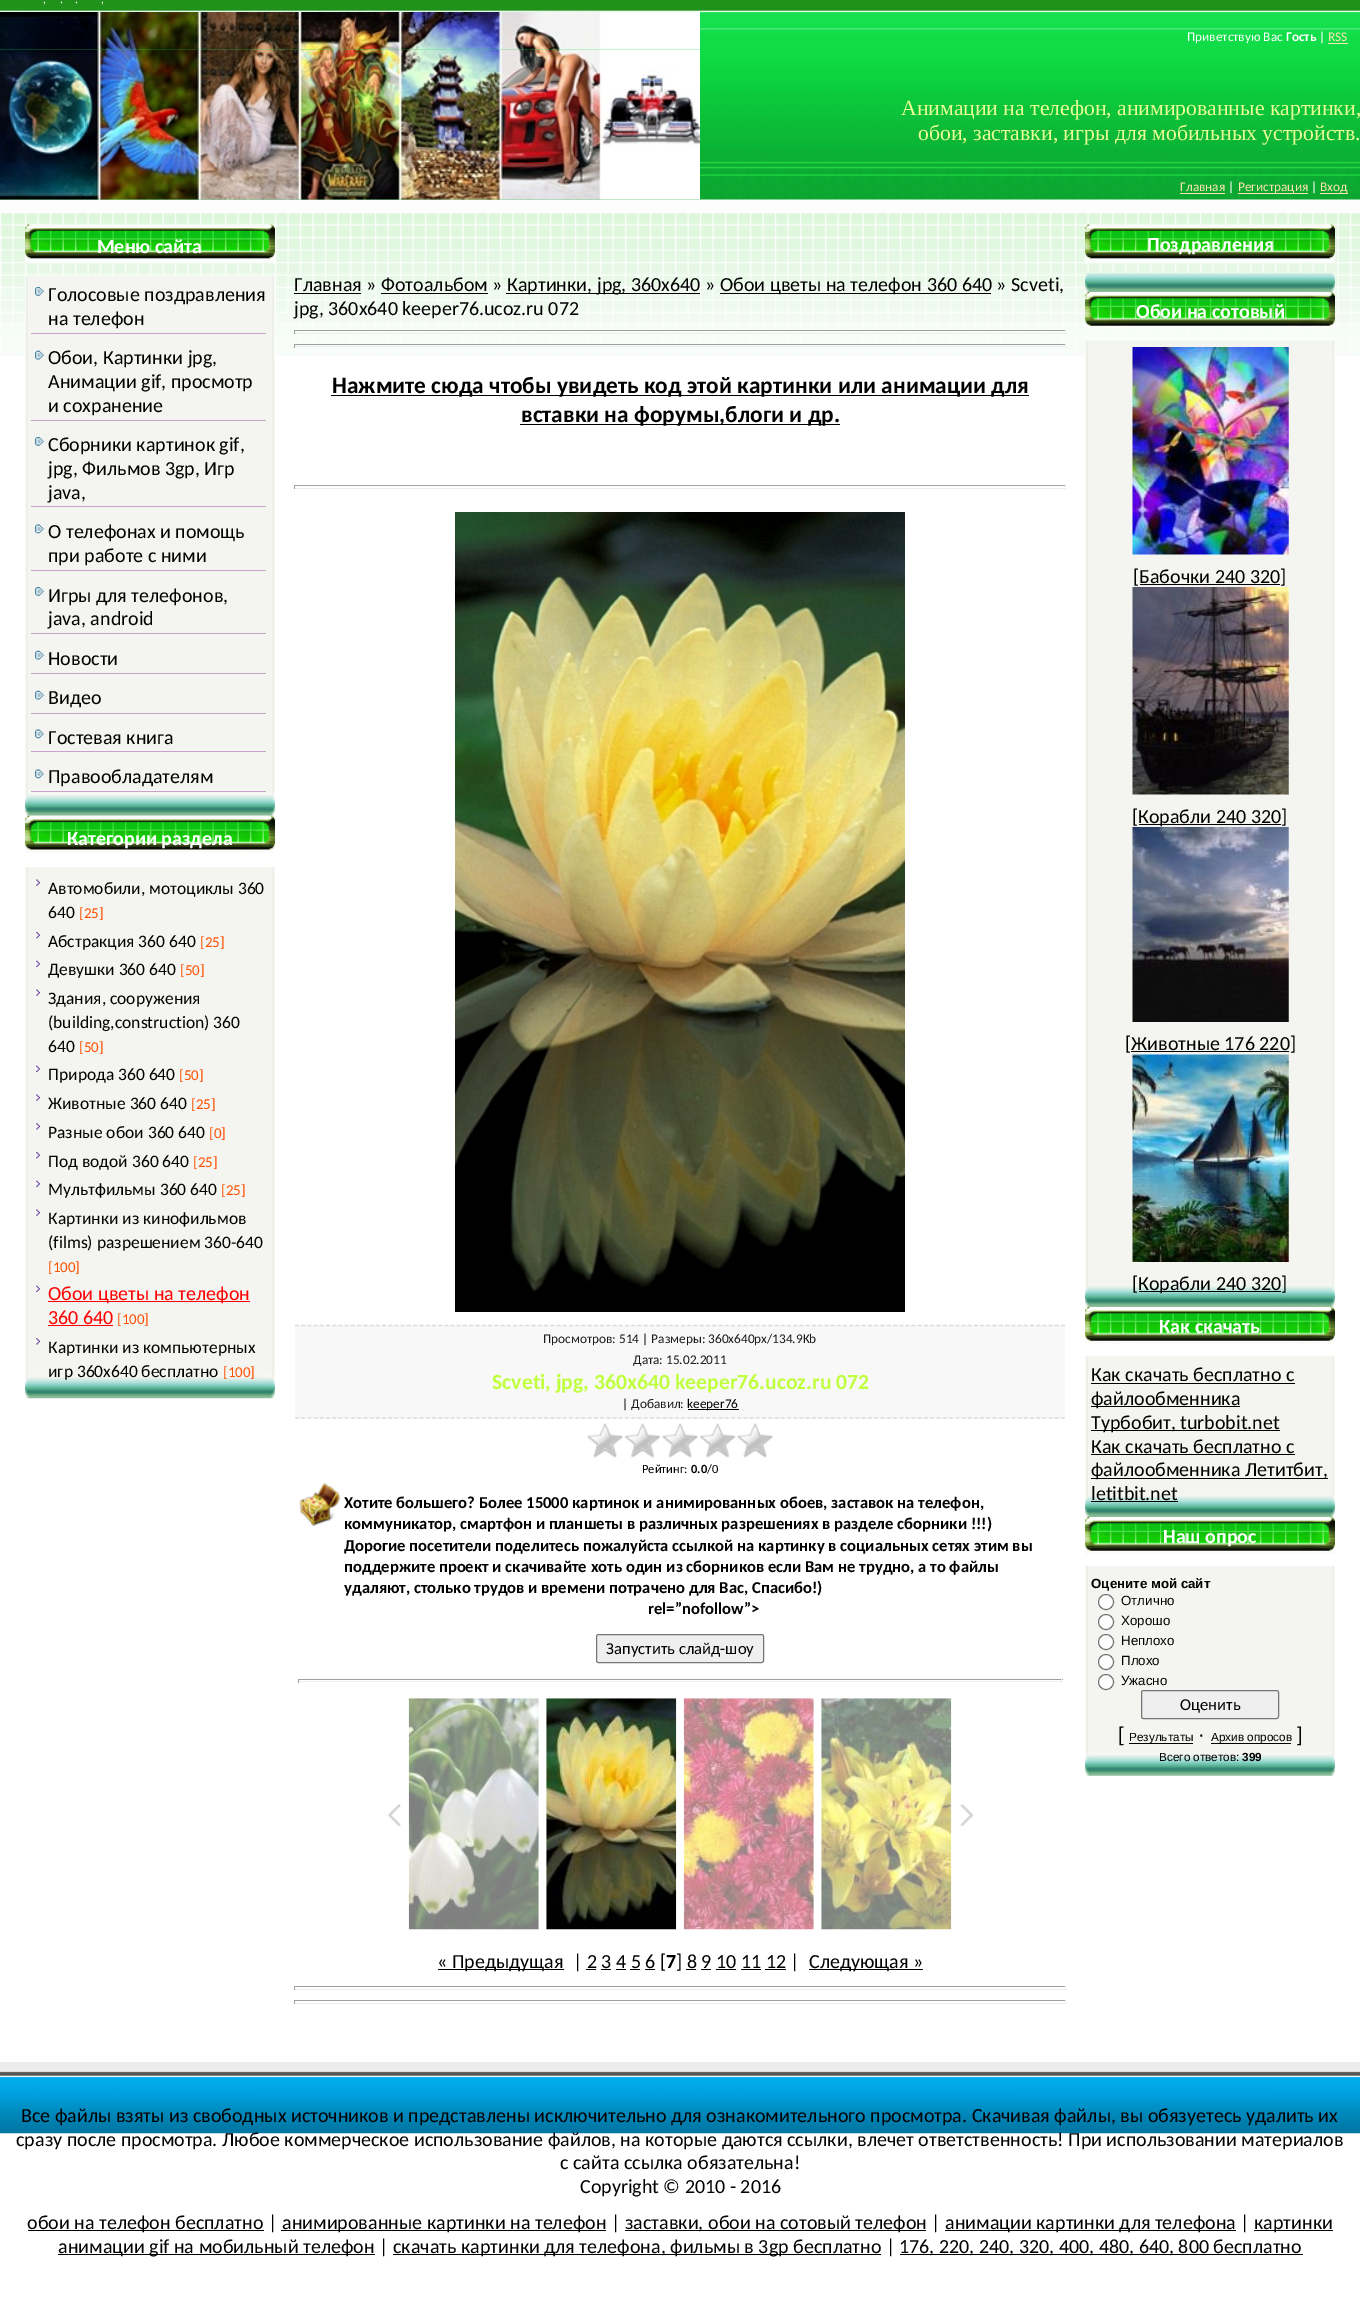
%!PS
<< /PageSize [1360 2322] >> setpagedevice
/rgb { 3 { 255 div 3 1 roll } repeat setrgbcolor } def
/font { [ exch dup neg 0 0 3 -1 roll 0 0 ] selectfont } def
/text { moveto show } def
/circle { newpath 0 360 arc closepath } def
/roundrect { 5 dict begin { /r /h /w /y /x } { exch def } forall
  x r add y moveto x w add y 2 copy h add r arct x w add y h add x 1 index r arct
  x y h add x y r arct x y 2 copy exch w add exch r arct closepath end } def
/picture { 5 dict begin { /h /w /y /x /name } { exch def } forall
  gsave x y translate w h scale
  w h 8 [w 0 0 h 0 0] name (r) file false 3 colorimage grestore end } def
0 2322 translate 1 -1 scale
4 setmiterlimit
255 255 255 rgb
0 0 1360 2322 rectfill
(img_01.rgb) 0 0 1360 356 picture
(img_02.rgb) 0 12 700 38 picture
255 228 178 rgb
1328 43 20 1 rectfill
(img_03.rgb) 0 49 700 113 picture
(img_04.rgb) 0 162 700 38 picture
1180 193 45 1 rectfill
1238 193 70 1 rectfill
1320 193 28 1 rectfill
(img_05.rgb) 25 224 250 38 picture
(img_06.rgb) 25 275 250 541 picture
(img_07.rgb) 35 287 9 9 picture
200 162 200 rgb
31 333 235 1 rectfill
(img_08.rgb) 35 350 9 10 picture
31 420 235 1 rectfill
(img_07.rgb) 35 437 9 9 picture
31 506 235 1 rectfill
(img_09.rgb) 35 524 9 10 picture
31 570 235 1 rectfill
(img_07.rgb) 35 587 9 9 picture
31 633 235 1 rectfill
(img_08.rgb) 35 650 9 10 picture
31 673 235 1 rectfill
(img_08.rgb) 35 690 9 10 picture
31 713 235 1 rectfill
(img_09.rgb) 35 729 9 10 picture
31 751 235 1 rectfill
(img_09.rgb) 35 769 9 10 picture
31 791 235 1 rectfill
(img_10.rgb) 25 815 250 38 picture
(img_11.rgb) 25 867 250 532 picture
(img_12.rgb) 35 879 5 7 picture
(img_13.rgb) 35 932 5 7 picture
(img_14.rgb) 35 960 5 7 picture
(img_12.rgb) 35 989 5 7 picture
(img_14.rgb) 35 1065 5 7 picture
(img_12.rgb) 35 1094 5 7 picture
(img_15.rgb) 35 1123 5 7 picture
(img_13.rgb) 35 1152 5 7 picture
(img_14.rgb) 35 1180 5 7 picture
(img_12.rgb) 35 1209 5 7 picture
(img_14.rgb) 35 1285 5 7 picture
255 0 0 rgb
48 1301 202 1 rectfill
48 1325 65 1 rectfill
(img_15.rgb) 35 1338 5 7 picture
0 0 0 rgb
294 293 67 1 rectfill
506 293 194 1 rectfill
720 293 271 1 rectfill
381 293 107 1 rectfill
159 159 159 rgb
294 330 772 1 rectfill
238 238 238 rgb
1065 330 1 4 rectfill
294 333 772 1 rectfill
159 159 159 rgb
294 330 1 4 rectfill
294 344 772 1 rectfill
238 238 238 rgb
1065 344 1 4 rectfill
294 346 772 1 rectfill
159 159 159 rgb
294 344 1 4 rectfill
0 0 0 rgb
331 395 698 1 rectfill
520 424 320 1 rectfill
159 159 159 rgb
294 485 772 1 rectfill
238 238 238 rgb
1065 485 1 4 rectfill
294 488 772 1 rectfill
159 159 159 rgb
294 485 1 4 rectfill
(img_16.rgb) 455 512 450 800 picture
248 248 248 rgb
295 1325 770 94 rectfill
221 221 221 rgb
1.2 setlinewidth
[3.75 2.48] 0 setdash
295 1325.5 moveto 770 0 rlineto stroke
295 1418 moveto 770 0 rlineto stroke
0 0 0 rgb
688 1409 51 1 rectfill
(img_17.rgb) 587 1423 186 35 picture
(img_18.rgb) 299 1483 42 43 picture
239 239 239 rgb
596.5 1634.5 167 28 2 roundrect gsave fill grestore
118 118 118 rgb
1 setlinewidth
[] 0 setdash
stroke
159 159 159 rgb
298 1679 765 1 rectfill
238 238 238 rgb
1061 1679 1 4 rectfill
298 1681 765 1 rectfill
159 159 159 rgb
298 1679 1 4 rectfill
(img_19.rgb) 387 1804 14 22 picture
(img_20.rgb) 408 1698 131 232 picture
(img_21.rgb) 546 1698 131 232 picture
(img_22.rgb) 683 1698 131 232 picture
(img_23.rgb) 821 1698 131 232 picture
(img_24.rgb) 960 1804 14 22 picture
0 0 0 rgb
438 1969 126 1 rectfill
809 1969 114 1 rectfill
586 1969 10 1 rectfill
601 1969 10 1 rectfill
616 1969 10 1 rectfill
630 1969 10 1 rectfill
645 1969 10 1 rectfill
686 1969 10 1 rectfill
701 1969 10 1 rectfill
716 1969 20 1 rectfill
741 1969 20 1 rectfill
765 1969 21 1 rectfill
159 159 159 rgb
294 1986 772 1 rectfill
238 238 238 rgb
1065 1986 1 4 rectfill
294 1989 772 1 rectfill
159 159 159 rgb
294 1986 1 4 rectfill
294 2000 772 1 rectfill
238 238 238 rgb
1065 2000 1 4 rectfill
294 2003 772 1 rectfill
159 159 159 rgb
294 2000 1 4 rectfill
(img_25.rgb) 1085 224 250 38 picture
(img_26.rgb) 1085 273 250 19 picture
(img_27.rgb) 1085 292 250 37 picture
(img_28.rgb) 1085 340 250 967 picture
(img_29.rgb) 1132 347 157 208 picture
0 0 0 rgb
1140 584 140 1 rectfill
(img_30.rgb) 1132 587 157 208 picture
1139 824 142 1 rectfill
(img_31.rgb) 1132 827 157 195 picture
1131 1051 158 1 rectfill
(img_32.rgb) 1132 1054 157 208 picture
1139 1291 142 1 rectfill
(img_33.rgb) 1085 1307 250 38 picture
(img_34.rgb) 1085 1355 250 162 picture
1091 1383 204 1 rectfill
1091 1406 149 1 rectfill
1091 1430 189 1 rectfill
1091 1454 204 1 rectfill
1091 1478 237 1 rectfill
1091 1501 87 1 rectfill
(img_33.rgb) 1085 1517 250 38 picture
(img_35.rgb) 1085 1565 250 211 picture
255 255 255 rgb
1106 1602 7.5 circle gsave fill grestore
118 118 118 rgb
stroke
255 255 255 rgb
1106 1622 7.5 circle gsave fill grestore
118 118 118 rgb
stroke
255 255 255 rgb
1106 1642 7.5 circle gsave fill grestore
118 118 118 rgb
stroke
255 255 255 rgb
1106 1662 7.5 circle gsave fill grestore
118 118 118 rgb
stroke
255 255 255 rgb
1106 1682 7.5 circle gsave fill grestore
118 118 118 rgb
stroke
239 239 239 rgb
1141.5 1690.5 137 28 2 roundrect gsave fill grestore
118 118 118 rgb
stroke
0 0 0 rgb
1129 1743 64 1 rectfill
1211 1743 80 1 rectfill
(img_36.rgb) 0 2062 1360 72 picture
28 2230 236 1 rectfill
281 2230 325 1 rectfill
625 2230 301 1 rectfill
945 2230 291 1 rectfill
1254 2230 79 1 rectfill
58 2254 317 1 rectfill
393 2254 488 1 rectfill
900 2254 403 1 rectfill
/Carlito-Regular 11.75 font
255 255 255 rgb
(,) 43 3 text
(.) 60 3 text
(.) 75 3 text
(,) 101 3 text
/Carlito-Regular 13.3 font
(Приветствую Вас) 1187 41 text
/Carlito-Bold 13.3 font
(Гость) 1286 41 text
/Carlito-Regular 13.3 font
(|) 1319 41 text
255 228 178 rgb
(RSS) 1328 41 text
/LiberationSerif-Regular 21.7 font
233 254 148 rgb
(Анимации на телефон, анимированные картинки,) 901 115 text
(обои, заставки, игры для мобильных устройств.) 918 140 text
/Carlito-Regular 13.3 font
255 228 178 rgb
(Главная) 1180 191 text
255 255 255 rgb
(|) 1228 191 text
255 228 178 rgb
(Регистрация) 1238 191 text
255 255 255 rgb
(|) 1311 191 text
255 228 178 rgb
(Вход) 1320 191 text
/Carlito-Bold 20 font
255 255 255 rgb
(Меню сайта) 97 253 text
/Carlito-Regular 20 font
0 0 0 rgb
(Голосовые поздравления) 48 301 text
(на телефон) 48 325 text
(Обои, Картинки jpg,) 48 364 text
(Анимации gif, просмотр) 48 388 text
(и сохранение) 48 412 text
(Сборники картинок gif,) 48 451 text
(jpg, Фильмов 3gp, Игр) 48 475 text
(java,) 48 499 text
(О телефонах и помощь) 48 538 text
(при работе с ними) 48 562 text
(Игры для телефонов,) 48 602 text
(java, android) 48 625 text
(Новости) 48 665 text
(Видео) 48 704 text
(Гостевая книга) 48 744 text
(Правообладателям) 48 783 text
/Carlito-Bold 20 font
255 255 255 rgb
(Категории раздела) 67 845 text
/Carlito-Regular 17.5 font
0 0 0 rgb
(Автомобили, мотоциклы 360) 48 894 text
(640) 48 918 text
/Carlito-Regular 15 font
255 79 0 rgb
([25]) 79 918 text
/Carlito-Regular 17.5 font
0 0 0 rgb
(Абстракция 360 640) 48 947 text
/Carlito-Regular 15 font
255 79 0 rgb
([25]) 200 947 text
/Carlito-Regular 17.5 font
0 0 0 rgb
(Девушки 360 640) 48 975 text
/Carlito-Regular 15 font
255 79 0 rgb
([50]) 180 975 text
/Carlito-Regular 17.5 font
0 0 0 rgb
(Здания, сооружения) 48 1004 text
(\(building,construction\) 360) 48 1028 text
(640) 48 1052 text
/Carlito-Regular 15 font
255 79 0 rgb
([50]) 79 1052 text
/Carlito-Regular 17.5 font
0 0 0 rgb
(Природа 360 640) 48 1080 text
/Carlito-Regular 15 font
255 79 0 rgb
([50]) 179 1080 text
/Carlito-Regular 17.5 font
0 0 0 rgb
(Животные 360 640) 48 1109 text
/Carlito-Regular 15 font
255 79 0 rgb
([25]) 191 1109 text
/Carlito-Regular 17.5 font
0 0 0 rgb
(Разные обои 360 640) 48 1138 text
/Carlito-Regular 15 font
255 79 0 rgb
([0]) 209 1138 text
/Carlito-Regular 17.5 font
0 0 0 rgb
(Под водой 360 640) 48 1167 text
/Carlito-Regular 15 font
255 79 0 rgb
([25]) 193 1167 text
/Carlito-Regular 17.5 font
0 0 0 rgb
(Мультфильмы 360 640) 48 1195 text
/Carlito-Regular 15 font
255 79 0 rgb
([25]) 221 1195 text
/Carlito-Regular 17.5 font
0 0 0 rgb
(Картинки из кинофильмов) 48 1224 text
(\(films\) разрешением 360-640) 48 1248 text
/Carlito-Regular 15 font
255 79 0 rgb
([100]) 48 1272 text
/Carlito-Regular 20 font
255 0 0 rgb
(Обои цветы на телефон) 48 1300 text
(360 640) 48 1324 text
/Carlito-Regular 15 font
255 79 0 rgb
([100]) 117 1324 text
/Carlito-Regular 17.5 font
0 0 0 rgb
(Картинки из компьютерных) 48 1353 text
(игр 360x640 бесплатно) 48 1377 text
/Carlito-Regular 15 font
255 79 0 rgb
([100]) 223 1377 text
/Carlito-Regular 20 font
0 0 0 rgb
(Главная » Фотоальбом ») 294 291 text
(Картинки, jpg, 360x640 ») 507 291 text
(Обои цветы на телефон 360 640 » Scveti,) 720 291 text
(jpg, 360x640 keeper76.ucoz.ru 072) 294 315 text
/Carlito-Bold 23.4 font
(Нажмите сюда чтобы увидеть код этой картинки или анимации для) 332 393 text
(вставки на форумы,блоги и др.) 521 422 text
/Carlito-Regular 13.3 font
26 26 26 rgb
(Просмотров: 514 | Размеры: 360x640px/134.9Kb) 543 1343 text
(Дата: 15.02.2011) 633 1364 text
/Carlito-Bold 21.7 font
192 255 62 rgb
(Scveti, jpg, 360x640 keeper76.ucoz.ru 072) 492 1389 text
/Carlito-Regular 13.3 font
26 26 26 rgb
(| Добавил:) 622 1408 text
0 0 0 rgb
(keeper76) 687 1408 text
/Carlito-Regular 12.5 font
(Рейтинг:) 642 1473 text
/Carlito-Bold 12.5 font
(0.0) 691 1473 text
/Carlito-Regular 12.5 font
(/0) 707 1473 text
/Carlito-Bold 16.65 font
(Хотите большего? Более 15000 картинок и анимированных обоев, заставок на телефон,) 344 1508 text
(коммуникатор, смартфон и планшеты в различных разрешениях в разделе сборники !!!\)) 344 1529 text
(Дорогие посетители поделитесь пожалуйста ссылкой на картинку в социальных сетях этим вы) 344 1551 text
(поддержите проект и скачивайте хоть один из сборников если Вам не трудно, а то файлы) 344 1572 text
(удаляют, столько трудов и времени потрачено для Вас, Спасибо!\)) 344 1593 text
(rel=”nofollow”>) 648 1614 text
/Carlito-Regular 16.65 font
(Запустить слайд-шоу) 606 1654 text
/Carlito-Regular 20 font
(« Предыдущая) 437 1968 text
(| 2 3 4 5 6 [) 573 1968 text
/Carlito-Bold 20 font
(7) 666 1968 text
/Carlito-Regular 20 font
(] 8 9 10 11 12 |) 676 1968 text
(Следующая ») 809 1968 text
/Carlito-Bold 20 font
255 255 255 rgb
(Поздравления) 1147 251 text
(Обои на сотовый) 1136 318 text
/Carlito-Regular 20 font
0 0 0 rgb
([Бабочки 240 320]) 1133 583 text
([) 1132 823 text
(Корабли 240 320]) 1138 823 text
([Животные 176 220]) 1125 1050 text
([) 1132 1290 text
(Корабли 240 320]) 1138 1290 text
/Carlito-Bold 20 font
255 255 255 rgb
(Как скачать) 1159 1333 text
/Carlito-Regular 20 font
0 0 0 rgb
(Как скачать бесплатно с) 1091 1381 text
(файлообменника) 1091 1405 text
(Турбобит, turbobit.net) 1091 1429 text
(Как скачать бесплатно с) 1091 1453 text
(файлообменника Летитбит,) 1091 1476 text
(letitbit.net) 1091 1500 text
/Carlito-Bold 20 font
255 255 255 rgb
(Наш опрос) 1163 1543 text
/LiberationSans-Bold 13.3 font
0 0 0 rgb
(Оцените мой сайт) 1091 1588 text
/LiberationSans-Regular 13.3 font
(Отлично) 1121 1605 text
(Хорошо) 1121 1625 text
(Неплохо) 1121 1645 text
(Плохо) 1121 1665 text
(Ужасно) 1121 1685 text
/Carlito-Regular 16.65 font
(Оценить) 1180 1710 text
/LiberationSans-Regular 20 font
([) 1118 1741 text
/LiberationSans-Regular 11.75 font
(Результаты) 1129 1741 text
/LiberationSans-Regular 20 font
(·) 1198 1741 text
/LiberationSans-Regular 11.75 font
(Архив опросов) 1211 1741 text
/LiberationSans-Regular 20 font
(]) 1297 1741 text
/LiberationSans-Regular 11.75 font
(Всего ответов:) 1159 1761 text
/LiberationSans-Bold 11.75 font
(399) 1242 1761 text
/Carlito-Regular 20 font
(Все файлы взяты из свободных источников и представлены исключительно для ознакомительного просмотра. Скачивая файлы, вы обязуетесь удалить их) 21 2122 text
(сразу после просмотра. Любое коммерческое использование файлов, на которые даются ссылки, влечет ответственность! При использовании материалов) 16 2146 text
(с сайта ссылка обязательна!) 560 2169 text
(Copyright © 2010 - 2016) 580 2193 text
(обои на телефон бесплатно |) 27 2229 text
(анимированные картинки на телефон |) 282 2229 text
(заставки, обои на сотовый телефон |) 625 2229 text
(анимации картинки для телефона |) 945 2229 text
(картинки) 1254 2229 text
(анимации gif на мобильный телефон |) 58 2253 text
(скачать картинки для телефона, фильмы в 3gp бесплатно |) 393 2253 text
(176, 220, 240, 320, 400, 480, 640, 800 бесплатно) 899 2253 text
showpage
